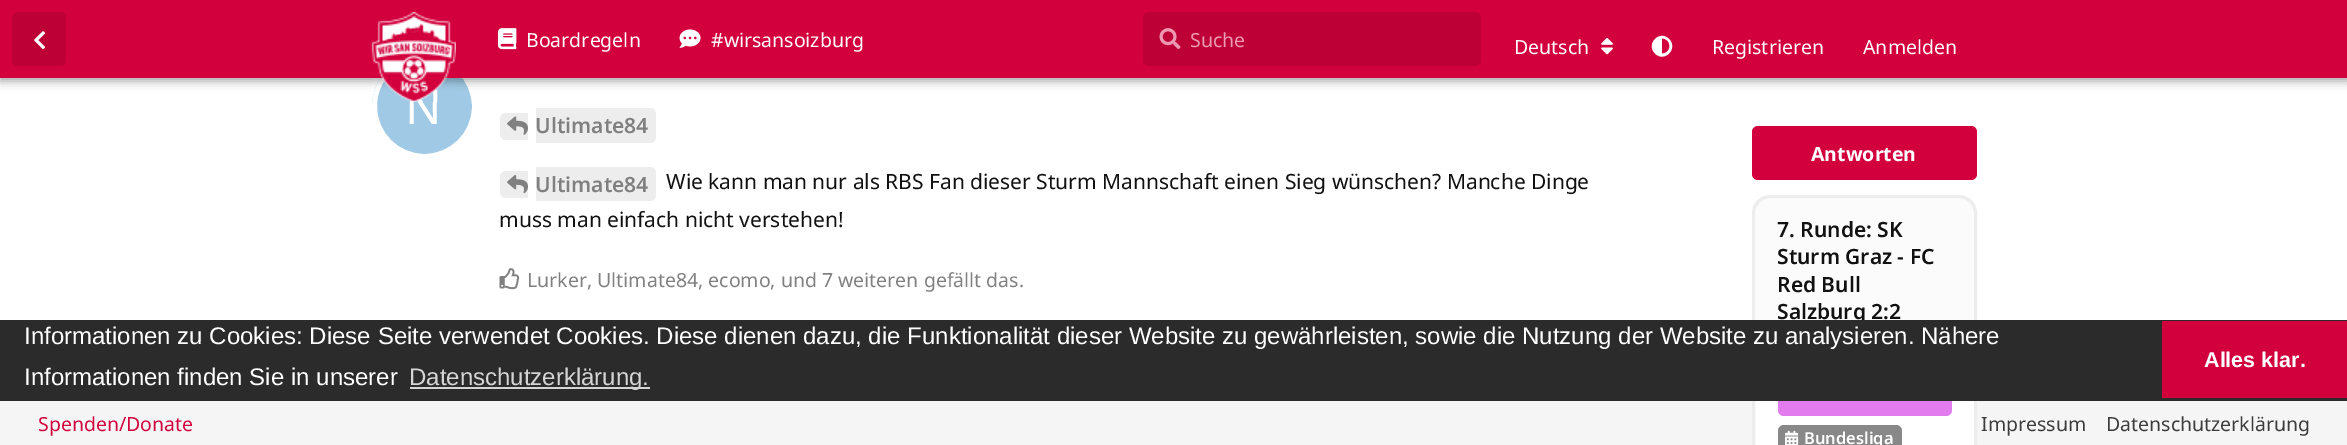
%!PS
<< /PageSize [2347 445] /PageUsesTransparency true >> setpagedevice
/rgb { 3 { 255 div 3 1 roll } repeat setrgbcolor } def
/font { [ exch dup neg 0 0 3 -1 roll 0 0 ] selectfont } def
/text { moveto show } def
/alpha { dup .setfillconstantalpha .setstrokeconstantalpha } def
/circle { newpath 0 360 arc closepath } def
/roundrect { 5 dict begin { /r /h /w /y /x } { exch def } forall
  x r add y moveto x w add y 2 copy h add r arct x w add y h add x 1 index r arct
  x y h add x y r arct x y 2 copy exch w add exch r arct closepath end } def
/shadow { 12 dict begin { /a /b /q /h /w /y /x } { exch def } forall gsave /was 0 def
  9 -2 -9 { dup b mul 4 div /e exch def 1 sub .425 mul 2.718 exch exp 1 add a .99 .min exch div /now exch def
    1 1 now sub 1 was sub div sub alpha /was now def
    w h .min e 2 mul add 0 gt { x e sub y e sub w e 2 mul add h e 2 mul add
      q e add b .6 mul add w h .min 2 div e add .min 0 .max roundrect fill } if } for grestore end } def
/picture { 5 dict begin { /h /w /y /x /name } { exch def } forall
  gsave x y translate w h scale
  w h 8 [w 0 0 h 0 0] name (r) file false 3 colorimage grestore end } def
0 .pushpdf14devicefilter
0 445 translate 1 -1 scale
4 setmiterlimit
255 255 255 rgb
0 0 2347 445 rectfill
160 201 229 rgb
424.5 106.5 50 circle gsave fill grestore
255 255 255 rgb
5 setlinewidth
stroke
0 0 0 rgb
0 3 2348 78 0 4.5 0.35 shadow
210 0 60 rgb
0 0 2347 78 rectfill
189 0 54 rgb
12 12 54 54 6 roundrect fill
(img_01.rgb) 34 31 11 18 picture
(img_03.rgb) 498 28 19 22 picture
(img_04.rgb) 679 29 22 19 picture
1143 12 338 54 6 roundrect fill
(img_05.rgb) 1159 28 22 22 picture
(img_06.rgb) 1601 38 12 17 picture
255 255 255 rgb
1655 53.5 moveto -9.5 -9.5 4.5 -24 14 -14.5 rcurveto 9.5 9.5 -4.5 24 -14 14.5 rcurveto closepath 1662 53.5 moveto 10 0 10 -15 0 -15 rcurveto closepath fill
237 237 237 rgb
506 113 moveto 22 0 rlineto 0 27 rlineto -22 0 rlineto -3.5 0 -6 -2.5 -6 -6 rcurveto 0 -15 rlineto 0 -3.5 2.5 -6 6 -6 rcurveto closepath fill
536 108 moveto 114 0 rlineto 3.5 0 6 2.5 6 6 rcurveto 0 23 rlineto 0 3.5 -2.5 6 -6 6 rcurveto -114 0 rlineto closepath fill
(img_07.rgb) 507 116 21 19 picture
506 171 moveto 22 0 rlineto 0 27 rlineto -22 0 rlineto -3.5 0 -6 -2.5 -6 -6 rcurveto 0 -15 rlineto 0 -3.5 2.5 -6 6 -6 rcurveto closepath fill
536 167 moveto 114 0 rlineto 3.5 0 6 2.5 6 6 rcurveto 0 22 rlineto 0 3.5 -2.5 6 -6 6 rcurveto -114 0 rlineto closepath fill
(img_08.rgb) 507 175 21 19 picture
(img_09.rgb) 499 268 21 22 picture
210 0 60 rgb
1752 126 225 54 6 roundrect fill
245 245 245 rgb
0 401 2347 44 rectfill
255 255 255 rgb
1753.5 196.5 222 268 16.5 roundrect gsave fill grestore
237 237 237 rgb
3 setlinewidth
stroke
0.2 alpha
1770 198 moveto 189 0 rlineto 8.5 0 15 6.5 15 15 rcurveto 0 132 rlineto -219 0 rlineto 0 -132 rlineto 0 -8.5 6.5 -15 15 -15 rcurveto closepath fill
1 alpha
226 123 237 rgb
1778 363 174 53 6 roundrect fill
136 136 136 rgb
1778 425 124 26 6 roundrect fill
(img_10.rgb) 1785 430 14 15 picture
/NotoSans-Regular 19.5 font
255 255 255 rgb
(Boardregeln) 526 47 text
(#wirsansoizburg) 711 47 text
237 153 177 rgb
(Suche) 1190 47 text
255 255 255 rgb
(Deutsch) 1514 54 text
(Registrieren) 1712 54 text
(Anmelden) 1863 54 text
/NotoSans-Regular 48 font
(N) 405 124 text
(img_02.rgb) 371 12 85 90 picture
/NotoSans-SemiBold 21 font
128 128 128 rgb
(Ultimate84) 535 133 text
(Ultimate84) 535 192 text
/NotoSans-Regular 21 font
17 17 17 rgb
(Wie kann man nur als RBS Fan dieser Sturm Mannschaft einen Sieg wünschen? Manche Dinge) 666 189 text
(muss man einfach nicht verstehen!) 499 227 text
/NotoSans-Regular 19.5 font
128 128 128 rgb
(Lurker, Ultimate84, ecomo, und 7 weiteren gefällt das.) 527 287 text
/NotoSans-Bold 19.5 font
255 255 255 rgb
(Antworten) 1811 161 text
/NotoSans-SemiBold 21 font
17 17 17 rgb
(7. Runde: SK) 1777 237 text
(Sturm Graz - FC) 1777 264 text
(Red Bull) 1777 292 text
(Salzburg 2:2) 1777 319 text
/NotoSans-SemiBold 16.5 font
255 255 255 rgb
(Bundesliga) 1804 444 text
43 43 43 rgb
0 320 2347 81 rectfill
/LiberationSans-Regular 24 font
255 255 255 rgb
(Informationen zu Cookies: Diese Seite verwendet Cookies. Diese dienen dazu, die Funktionalität dieser Website zu gewährleisten, sowie die Nutzung der Website zu analysieren. Nähere) 24 344 text
(Informationen finden Sie in unserer) 24 385 text
213 213 213 rgb
410 387 240 2 rectfill
(Datenschutzerklärung.) 409 385 text
210 0 60 rgb
2162 321 185 77 rectfill
/LiberationSans-Bold 21.5 font
255 255 255 rgb
(Alles klar.) 2204 367 text
/NotoSans-Regular 19.5 font
210 0 60 rgb
(Spenden/Donate) 38 431 text
60 60 60 rgb
(Impressum) 1981 431 text
(Datenschutzerklärung) 2106 431 text
.poppdf14devicefilter showpage
